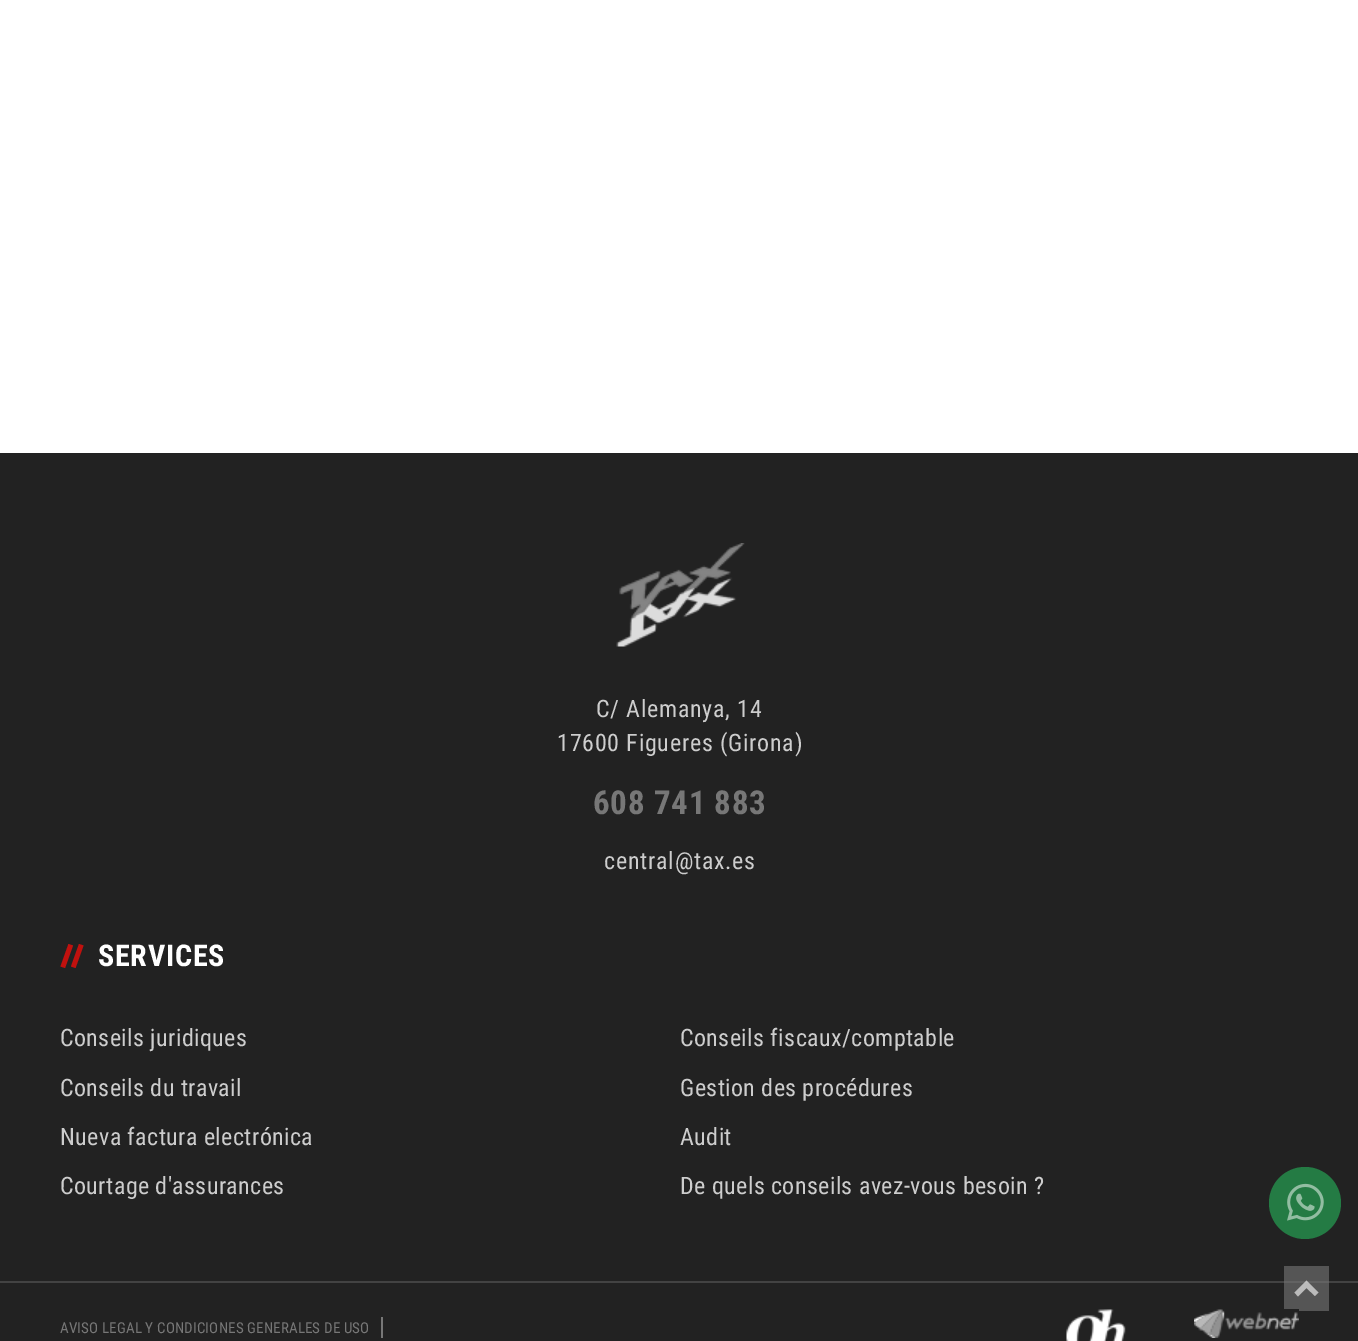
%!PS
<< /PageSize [1358 1341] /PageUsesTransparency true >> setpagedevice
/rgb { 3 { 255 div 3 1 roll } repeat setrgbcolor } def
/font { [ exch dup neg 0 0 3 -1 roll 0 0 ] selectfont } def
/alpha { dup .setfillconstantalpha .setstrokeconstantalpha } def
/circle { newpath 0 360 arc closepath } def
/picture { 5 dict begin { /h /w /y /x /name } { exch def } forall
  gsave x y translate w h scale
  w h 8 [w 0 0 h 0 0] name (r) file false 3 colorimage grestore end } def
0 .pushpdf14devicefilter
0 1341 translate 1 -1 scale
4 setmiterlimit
255 255 255 rgb
0 0 1358 1341 rectfill
34 34 34 rgb
0 453 1358 888 rectfill
85 85 85 rgb
1284 1266 45 45 rectfill
(img_01.rgb) 616 543 129 104 picture
193 17 14 rgb
68.5 944 moveto 4.5 1.5 rlineto -8 22.5 rlineto -4.5 -1.5 rlineto closepath fill
79 944 moveto 4.5 1.5 rlineto -8 22.5 rlineto -4.5 -1.5 rlineto closepath fill
67 67 67 rgb
0 1281 1358 2 rectfill
98 98 98 rgb
1284 1281 45 2 rectfill
119 119 119 rgb
381 1317 2 21 rectfill
(img_02.rgb) 1066 1309 60 32 picture
(img_03.rgb) 1194 1309 105 29 picture
36 123 68 rgb
1305 1203 36 circle fill
(img_04.rgb) 1287 1183 37 38 picture
0.6 alpha
255 255 255 rgb
1306.5 1280.5 moveto 12 12 rlineto -3.5 3.5 rlineto -8.5 -8 rlineto -8.5 8.5 rlineto -3.5 -4 rlineto closepath fill
/RobotoCondensed-Regular 24 font
1 alpha
205 205 205 rgb
596 717 moveto 0.75 0 (C/ Alemanya, 14) ashow
557 751 moveto 0.75 0 (17600 Figueres \(Girona\)) ashow
/RobotoCondensed-Bold 33 font
119 119 119 rgb
593 814 moveto 0.75 0 (608 741 883) ashow
/RobotoCondensed-Regular 24 font
205 205 205 rgb
604 869 moveto 0.75 0 (central@tax.es) ashow
/RobotoCondensed-Bold 30 font
255 255 255 rgb
98 966 moveto 0.75 0 (SERVICES) ashow
/RobotoCondensed-Regular 24 font
205 205 205 rgb
60 1046 moveto 0.4 0 (Conseils juridiques) ashow
680 1046 moveto 0.4 0 (Conseils fiscaux/comptable) ashow
60 1096 moveto 0.4 0 (Conseils du travail) ashow
680 1096 moveto 0.4 0 (Gestion des procédures) ashow
60 1145 moveto 0.4 0 (Nueva factura electrónica) ashow
680 1145 moveto 0.4 0 (Audit) ashow
60 1194 moveto 0.4 0 (Courtage d'assurances) ashow
680 1194 moveto 0.4 0 (De quels conseils avez-vous besoin ?) ashow
/RobotoCondensed-Regular 15 font
119 119 119 rgb
60 1333 moveto 0.15 0 (AVISO LEGAL Y CONDICIONES GENERALES DE USO) ashow
.poppdf14devicefilter showpage
